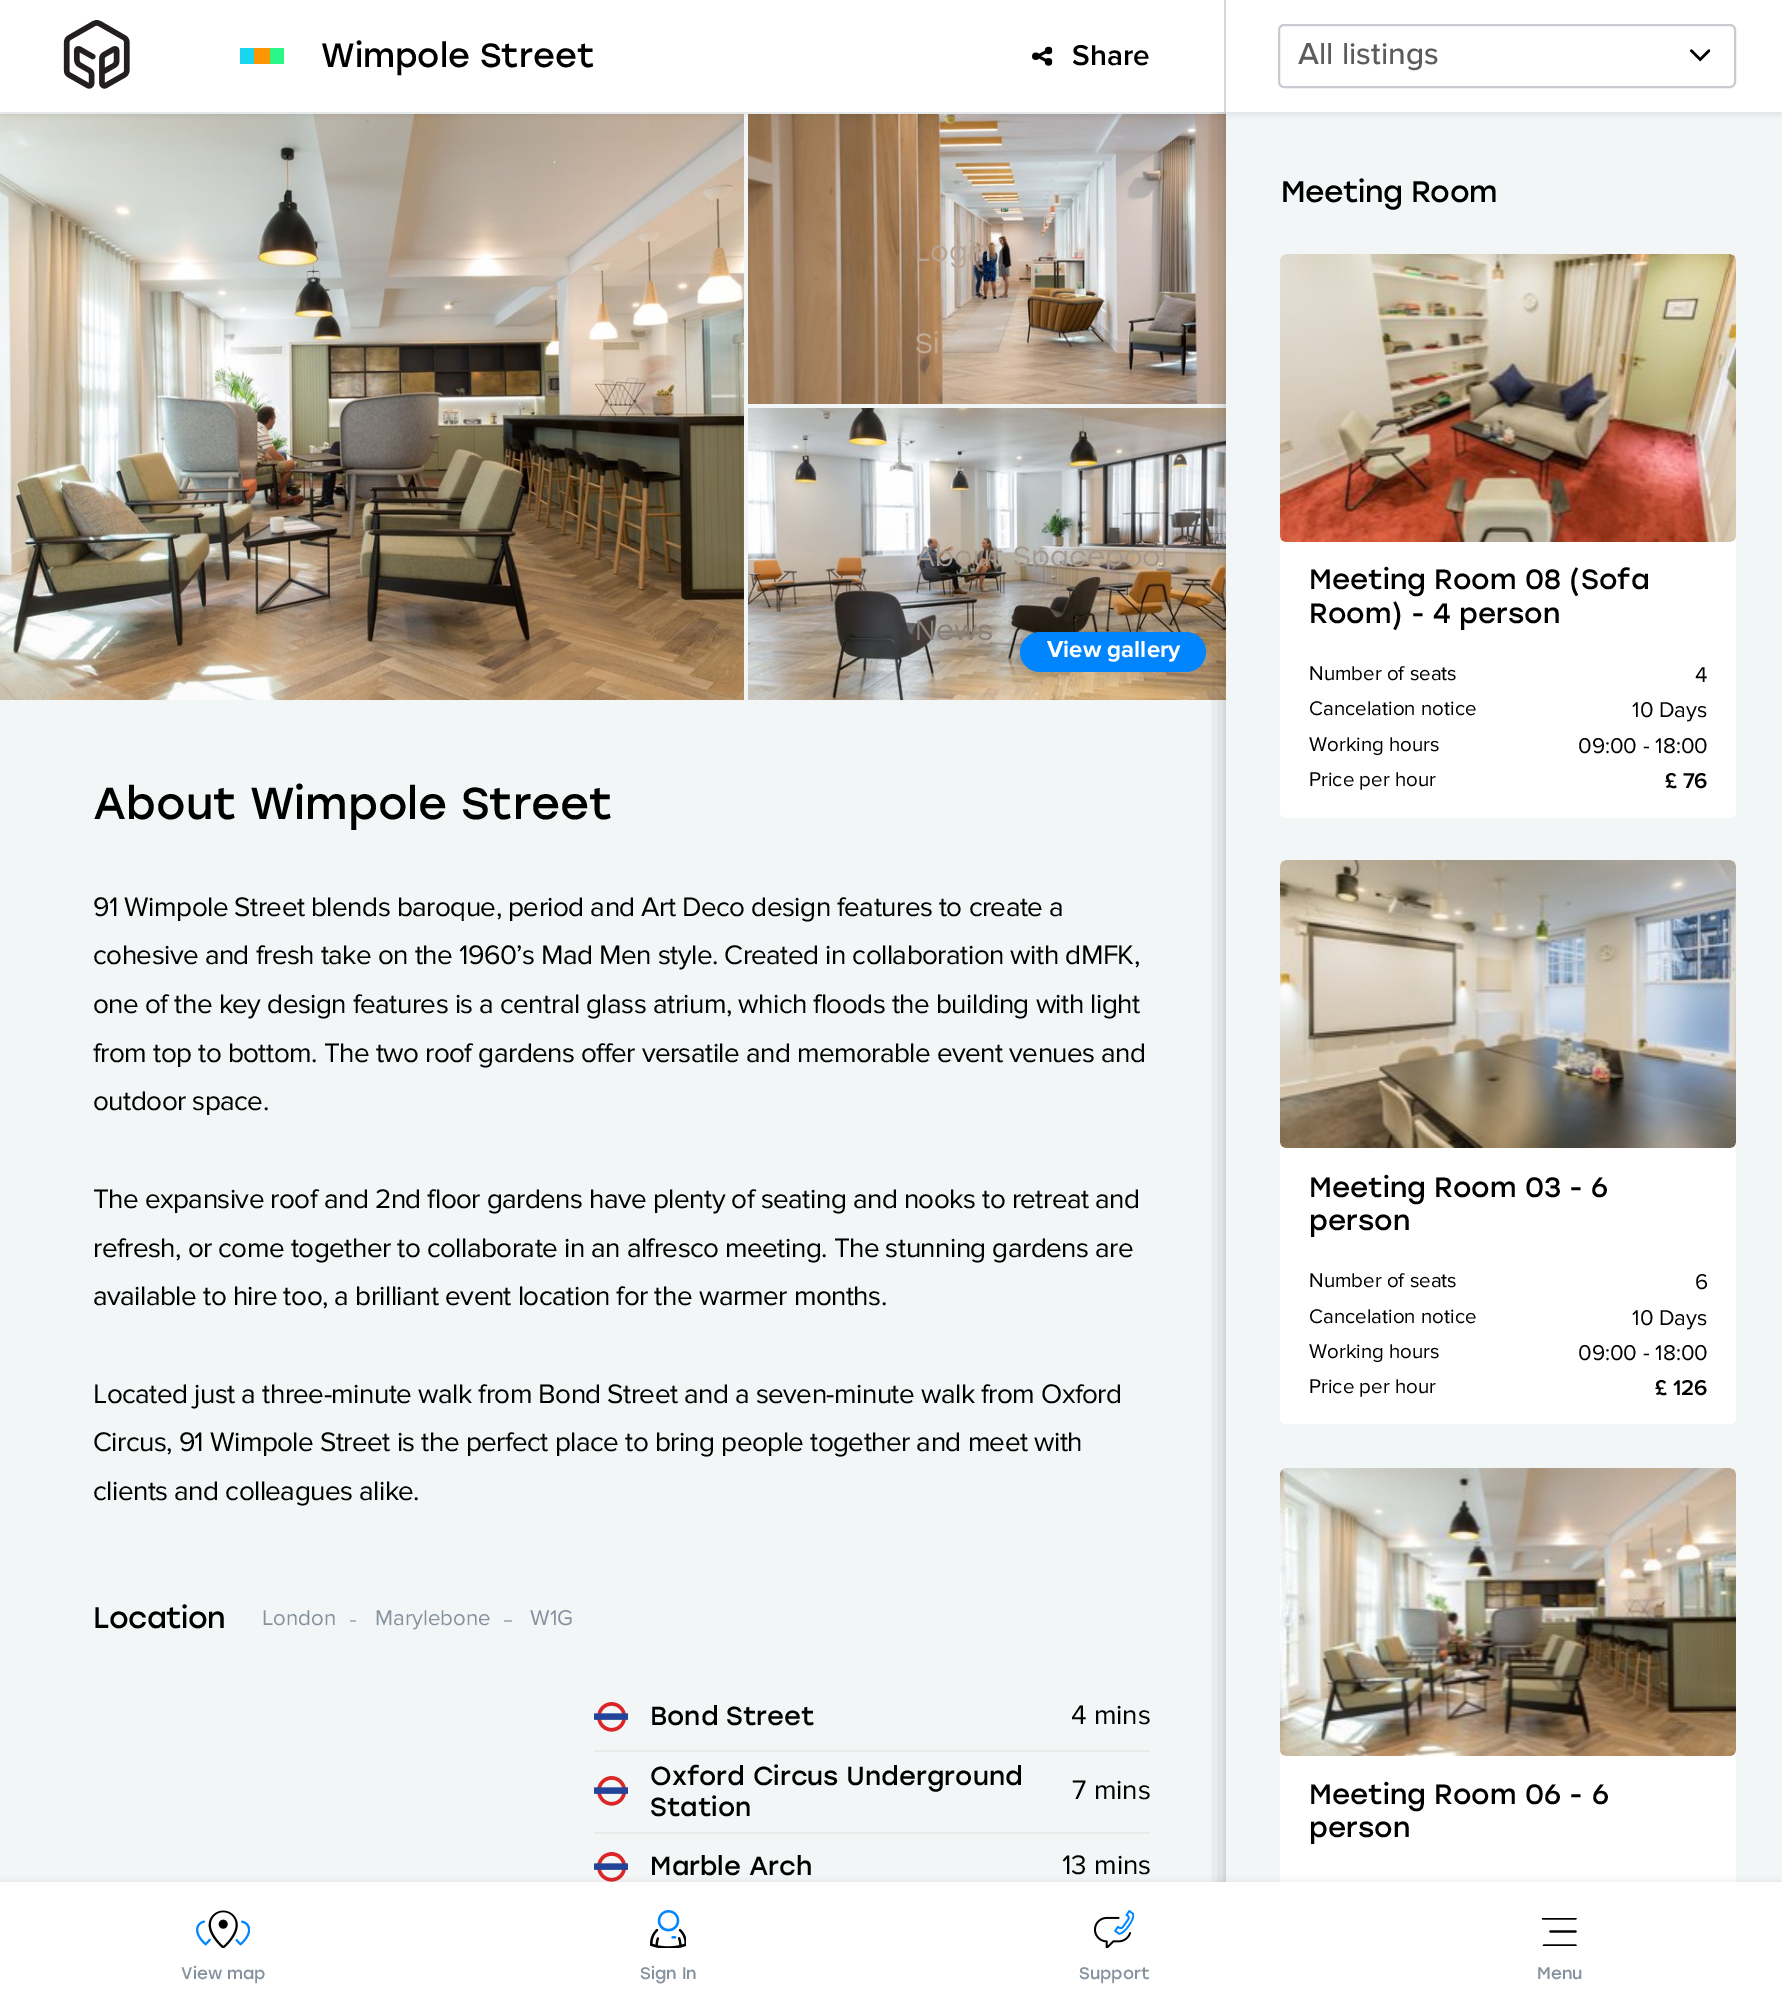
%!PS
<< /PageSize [1782 1994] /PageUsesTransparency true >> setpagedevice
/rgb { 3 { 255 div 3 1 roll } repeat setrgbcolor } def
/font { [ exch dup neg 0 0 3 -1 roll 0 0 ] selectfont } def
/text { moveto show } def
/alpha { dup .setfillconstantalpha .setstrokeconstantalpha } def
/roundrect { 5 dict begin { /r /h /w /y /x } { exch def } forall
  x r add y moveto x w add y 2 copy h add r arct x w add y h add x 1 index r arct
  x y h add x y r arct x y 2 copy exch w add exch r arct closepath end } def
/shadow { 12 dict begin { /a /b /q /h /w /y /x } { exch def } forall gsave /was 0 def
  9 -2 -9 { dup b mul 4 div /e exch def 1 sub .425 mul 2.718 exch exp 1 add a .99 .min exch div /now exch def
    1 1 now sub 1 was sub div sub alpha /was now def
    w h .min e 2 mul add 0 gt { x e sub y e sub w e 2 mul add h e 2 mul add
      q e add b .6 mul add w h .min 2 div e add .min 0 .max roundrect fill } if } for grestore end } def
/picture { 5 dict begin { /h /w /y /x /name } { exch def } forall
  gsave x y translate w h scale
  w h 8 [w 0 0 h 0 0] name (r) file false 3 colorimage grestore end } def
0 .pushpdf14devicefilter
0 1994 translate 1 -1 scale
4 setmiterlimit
242 246 246 rgb
0 0 1782 1994 rectfill
(img_04.rgb) 0 114 744 586 picture
(img_05.rgb) 748 114 478 290 picture
0 0 0 rgb
0 4 1782 112 0 2 0.06 shadow
(img_06.rgb) 748 408 478 292 picture
0 133 255 rgb
1020 632 186 40 20 roundrect fill
gsave
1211 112 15 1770 rectclip
0 0 0 rgb
1226 8 556 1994 0 11 0.25 shadow
grestore
255 255 255 rgb
0 0 1224 112 rectfill
213 215 220 rgb
1224 0 2 112 rectfill
(img_01.rgb) 63 20 67 69 picture
26 213 239 rgb
240 48 14 16 rectfill
253 150 3 rgb
254 48 16 16 rectfill
42 247 135 rgb
270 48 14 16 rectfill
(img_02.rgb) 1032 46 21 20 picture
255 255 255 rgb
1226 0 556 112 rectfill
200 204 208 rgb
2 setlinewidth
1279 25 456 62 5 roundrect stroke
(img_03.rgb) 1690 49 21 13 picture
173 186 189 rgb
350 1620 6 2 rectfill
504 1620 8 2 rectfill
234 234 234 rgb
594 1750 556 2 rectfill
(img_07.rgb) 594 1702 34 30 picture
594 1832 556 2 rectfill
(img_07.rgb) 594 1776 34 30 picture
(img_07.rgb) 594 1852 34 30 picture
255 255 255 rgb
1280 254 456 564 6 roundrect fill
(img_08.rgb) 1280 254 456 288 picture
1280 860 456 564 6 roundrect fill
(img_09.rgb) 1280 860 456 288 picture
1286 1468 moveto 444 0 rlineto 3.5 0 6 2.5 6 6 rcurveto 0 520 rlineto -456 0 rlineto 0 -520 rlineto 0 -3.5 2.5 -6 6 -6 rcurveto closepath fill
(img_10.rgb) 1280 1468 456 288 picture
0 0 0 rgb
0 1880 1782 112 0 3 0.05 shadow
255 255 255 rgb
0 1882 1782 112 rectfill
(img_11.rgb) 196 1910 54 38 picture
(img_12.rgb) 650 1910 36 38 picture
(img_13.rgb) 1094 1910 40 38 picture
gsave
1542 1918 36 28 rectclip
0 0 0 rgb
2.2 setlinewidth
1 setlinecap
1543 1918.5 moveto 32.5 0 rlineto stroke
grestore
0 0 0 rgb
2.2 setlinewidth
1 setlinecap
1550.5 1931.5 moveto 25 0 rlineto stroke
gsave
1542 1918 36 28 rectclip
1544 1945.5 moveto 31.5 0 rlineto stroke
grestore
/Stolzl-Regular 33.5 font
(Wimpole Street) 321 67 text
/ProximaNova-SemiBold 29.75 font
(Share) 1072 65 text
/ProximaNova-Medium 31.5 font
92 92 92 rgb
(All listings) 1298 64 text
/ProximaNova-Bold 24 font
255 255 255 rgb
(View gallery) 1047 657 text
/Stolzl-Regular 44.5 font
0 0 0 rgb
(About Wimpole Street) 93 819 text
/ProximaNova-Regular 27.85 font
93 916 moveto -0.55 0 (91 Wimpole Street blends baroque, period and Art Deco design features to create a) ashow
93 964 moveto -0.55 0 (cohesive and fresh take on the 1960’s Mad Men style. Created in collaboration with dMFK,) ashow
93 1013 moveto -0.55 0 (one of the key design features is a central glass atrium, which floods the building with light) ashow
93 1062 moveto -0.55 0 (from top to bottom. The two roof gardens offer versatile and memorable event venues and) ashow
93 1110 moveto -0.55 0 (outdoor space.) ashow
93 1208 moveto -0.55 0 (The expansive roof and 2nd floor gardens have plenty of seating and nooks to retreat and) ashow
93 1257 moveto -0.55 0 (refresh, or come together to collaborate in an alfresco meeting. The stunning gardens are) ashow
93 1305 moveto -0.55 0 (available to hire too, a brilliant event location for the warmer months.) ashow
93 1403 moveto -0.55 0 (Located just a three-minute walk from Bond Street and a seven-minute walk from Oxford) ashow
93 1451 moveto -0.55 0 (Circus, 91 Wimpole Street is the perfect place to bring people together and meet with) ashow
93 1500 moveto -0.55 0 (clients and colleagues alike.) ashow
/Stolzl-Regular 29.75 font
93 1628 moveto -0.5 0 (Location) ashow
/ProximaNova-Regular 22.25 font
134 145 158 rgb
(London) 262 1625 text
(Marylebone) 375 1625 text
(W1G) 530 1625 text
/Stolzl-Regular 26 font
0 0 0 rgb
(Bond Street) 650 1725 text
/ProximaNova-Regular 27.85 font
(4 mins) 1071 1724 text
/Stolzl-Regular 26 font
(Oxford Circus Underground) 650 1785 text
(Station) 650 1816 text
/ProximaNova-Regular 27.85 font
(7 mins) 1072 1799 text
/Stolzl-Regular 26 font
(Marble Arch) 650 1875 text
/ProximaNova-Regular 27.85 font
(13 mins) 1062 1874 text
/Stolzl-Regular 29.75 font
1281 202 moveto -0.5 0 (Meeting Room) ashow
/Stolzl-Regular 27.85 font
(Meeting Room 08 \(Sofa) 1309 589 text
(Room\) - 4 person) 1309 623 text
/ProximaNova-Regular 20.5 font
(Number of seats) 1309 680 text
/ProximaNova-Regular 22.25 font
(4) 1695 682 text
/ProximaNova-Regular 20.5 font
(Cancelation notice) 1309 715 text
/ProximaNova-Regular 22.25 font
(10 Days) 1632 717 text
/ProximaNova-Regular 20.5 font
(Working hours) 1309 751 text
/ProximaNova-Regular 22.25 font
(09:00 - 18:00) 1578 753 text
/ProximaNova-Regular 20.5 font
(Price per hour) 1309 786 text
/ProximaNova-SemiBold 22.25 font
(£ 76) 1665 788 text
/Stolzl-Regular 27.85 font
(Meeting Room 03 - 6) 1309 1197 text
(person) 1309 1230 text
/ProximaNova-Regular 20.5 font
(Number of seats) 1309 1287 text
/ProximaNova-Regular 22.25 font
(6) 1695 1289 text
/ProximaNova-Regular 20.5 font
(Cancelation notice) 1309 1323 text
/ProximaNova-Regular 22.25 font
(10 Days) 1632 1325 text
/ProximaNova-Regular 20.5 font
(Working hours) 1309 1358 text
/ProximaNova-Regular 22.25 font
(09:00 - 18:00) 1578 1360 text
/ProximaNova-Regular 20.5 font
(Price per hour) 1309 1393 text
/ProximaNova-SemiBold 22.25 font
(£ 126) 1655 1395 text
/Stolzl-Regular 27.85 font
(Meeting Room 06 - 6) 1309 1804 text
(person) 1309 1837 text
/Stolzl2-Regular 27.85 font
183 164 149 rgb
(Login) 915 261 text
193 171 149 rgb
(Si) 915 353 text
163 152 141 rgb
(About Spacepool) 915 566 text
137 129 119 rgb
(News) 915 640 text
/Stolzl-Regular 16.75 font
134 145 158 rgb
(View map) 181 1979 text
(Sign In) 640 1979 text
(Support) 1079 1979 text
(Menu) 1537 1979 text
.poppdf14devicefilter showpage
